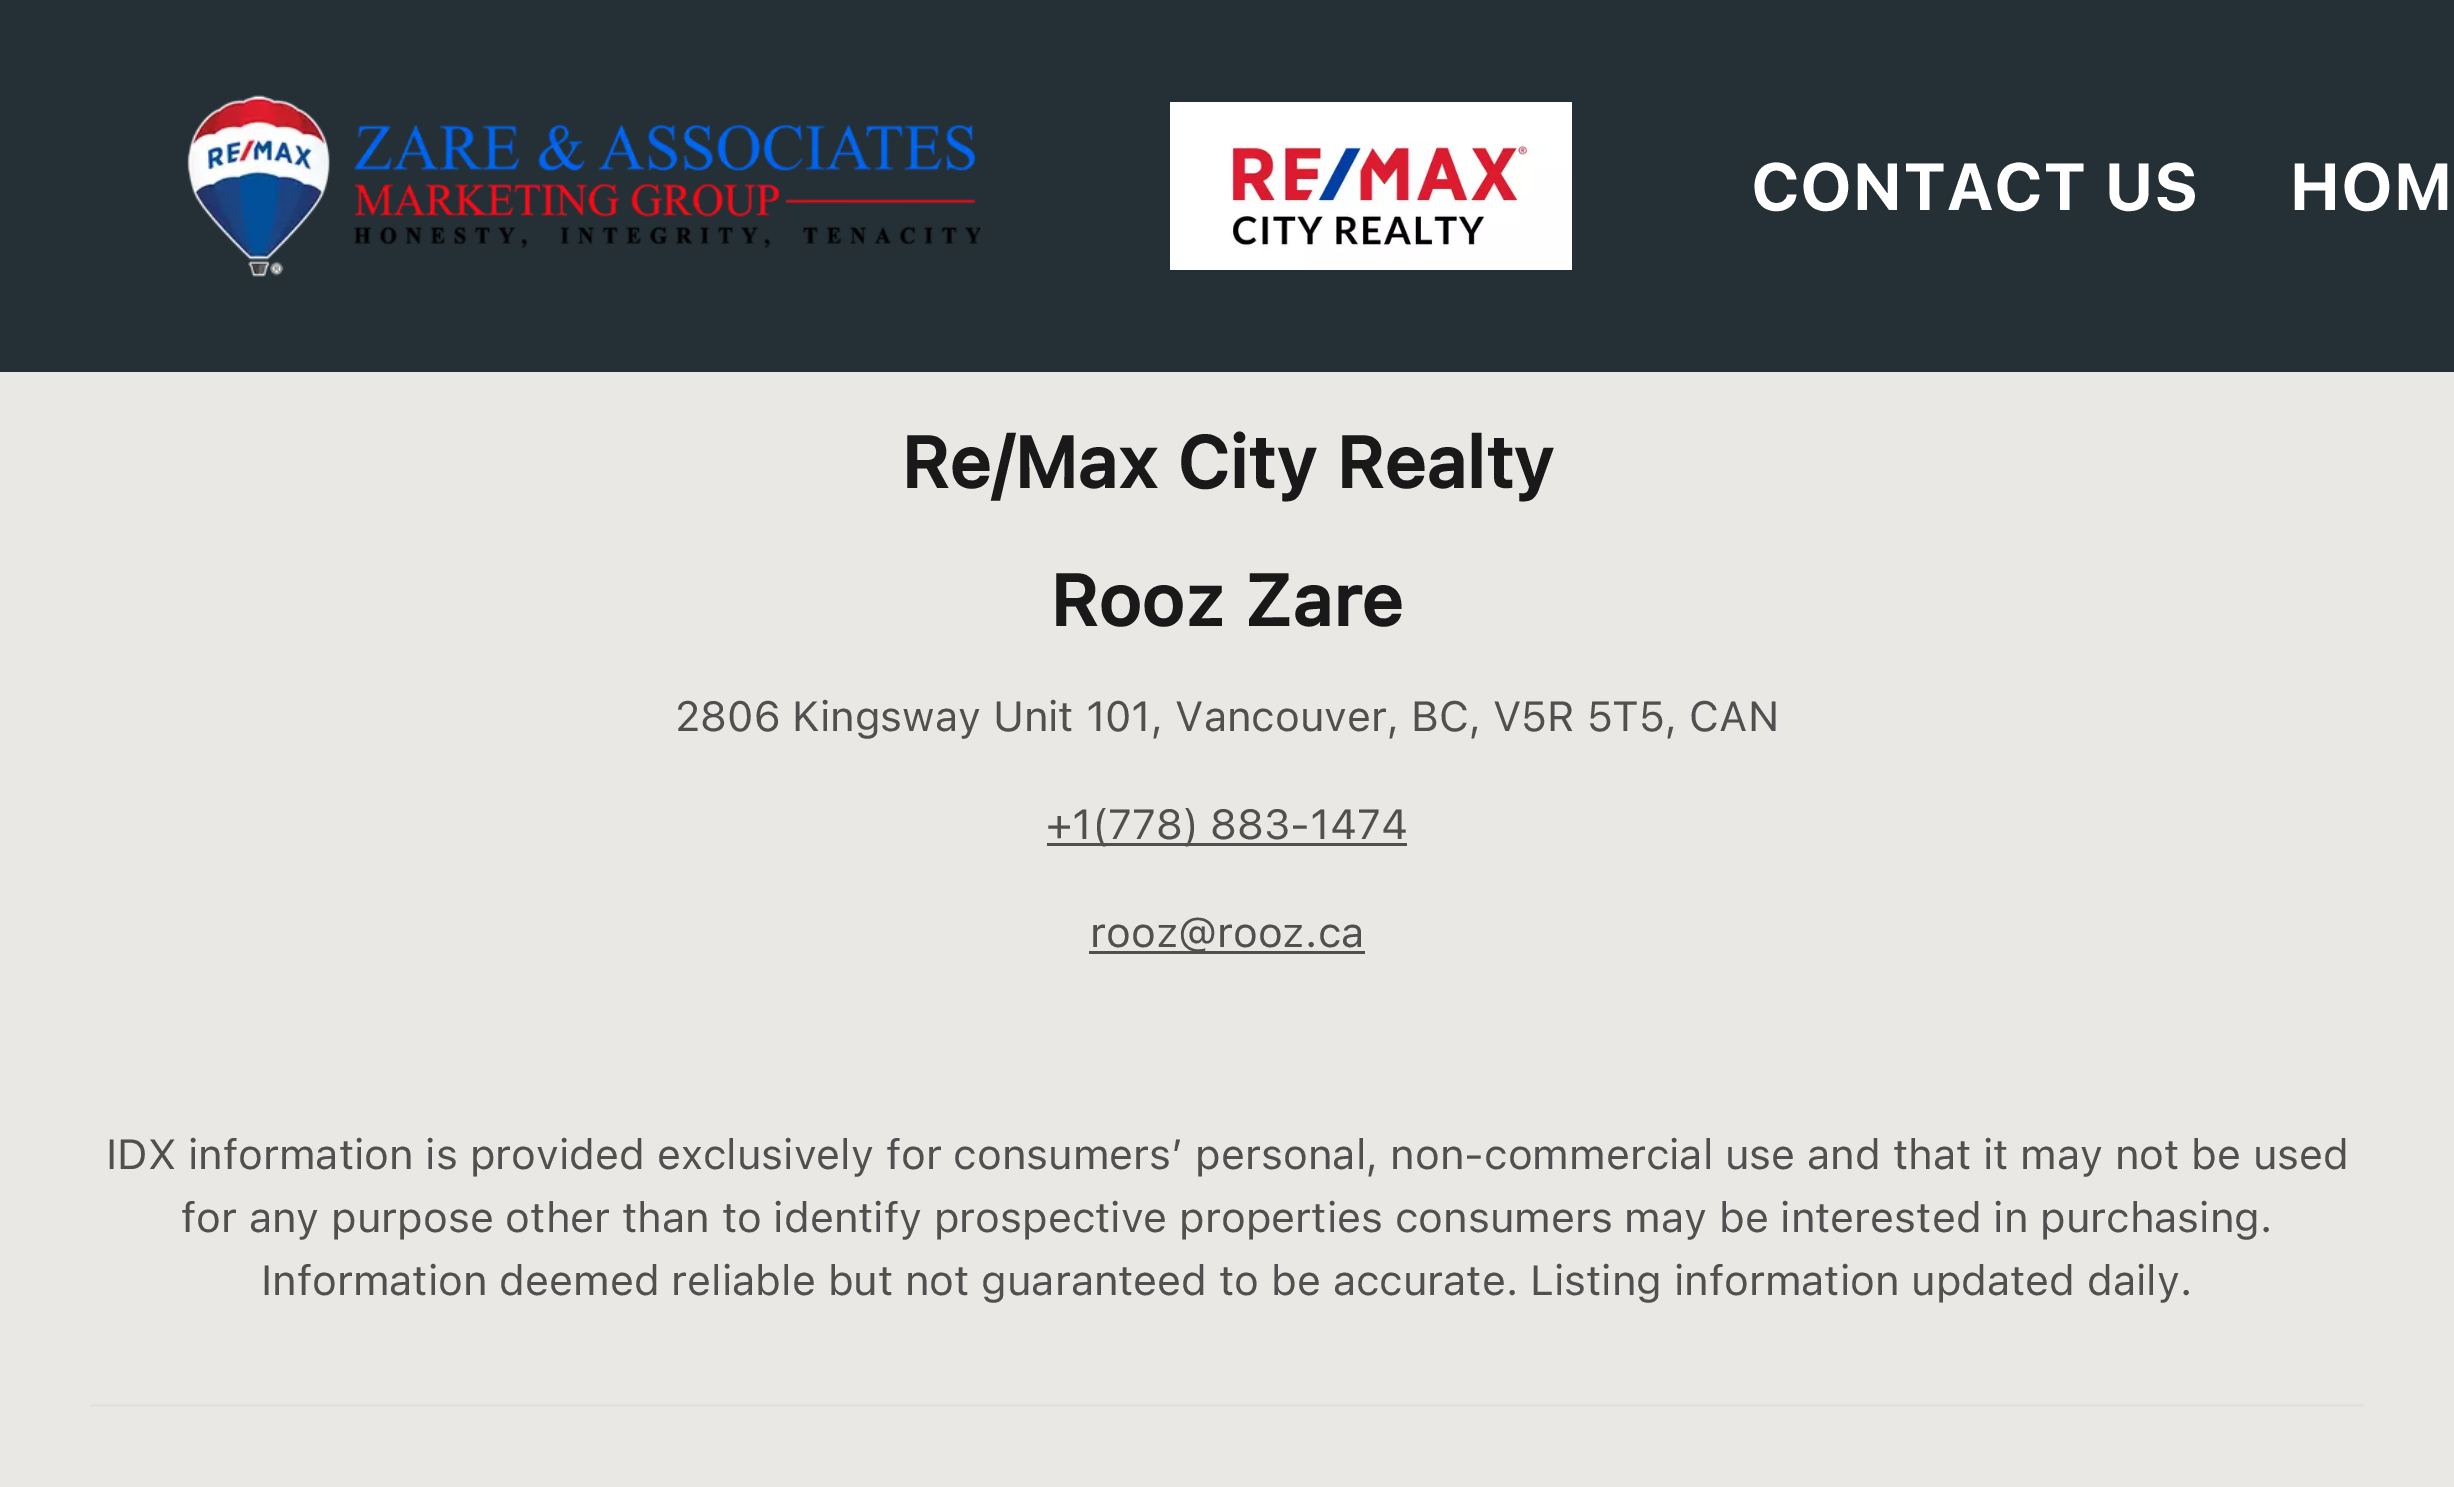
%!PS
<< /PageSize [2454 1487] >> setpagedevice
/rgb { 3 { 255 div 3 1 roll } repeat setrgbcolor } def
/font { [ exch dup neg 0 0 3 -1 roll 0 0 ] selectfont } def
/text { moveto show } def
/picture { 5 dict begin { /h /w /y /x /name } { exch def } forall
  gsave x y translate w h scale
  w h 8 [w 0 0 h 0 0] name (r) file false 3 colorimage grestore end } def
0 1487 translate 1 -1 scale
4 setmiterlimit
234 232 228 rgb
0 0 2454 1487 rectfill
36 47 54 rgb
0 0 2454 372 rectfill
(img_01.rgb) 187 95 795 182 picture
(img_02.rgb) 1170 102 402 168 picture
80 80 80 rgb
1047 843 360 3 rectfill
1089 951 276 3 rectfill
226 225 223 rgb
90 1404 2274 3 rectfill
/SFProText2-Bold 66 font
255 255 255 rgb
(CONTACT US) 1751 210 text
(HOM) 2289 210 text
/SFProText-Bold 72 font
25 25 25 rgb
(Re/Max City Realty) 901 488 text
(Rooz Zare) 1050 626 text
/SFProText-Regular 42 font
80 80 80 rgb
(2806 Kingsway Unit 101, Vancouver, BC, V5R 5T5, CAN) 675 731 text
(+1\(778\) 883-1474) 1046 839 text
(rooz@rooz.ca) 1090 947 text
(IDX information is provided exclusively for consumers’ personal, non-commercial use and that it may not be used) 106 1169 text
(for any purpose other than to identify prospective properties consumers may be interested in purchasing.) 181 1232 text
(Information deemed reliable but not guaranteed to be accurate. Listing information updated daily.) 261 1295 text
showpage
